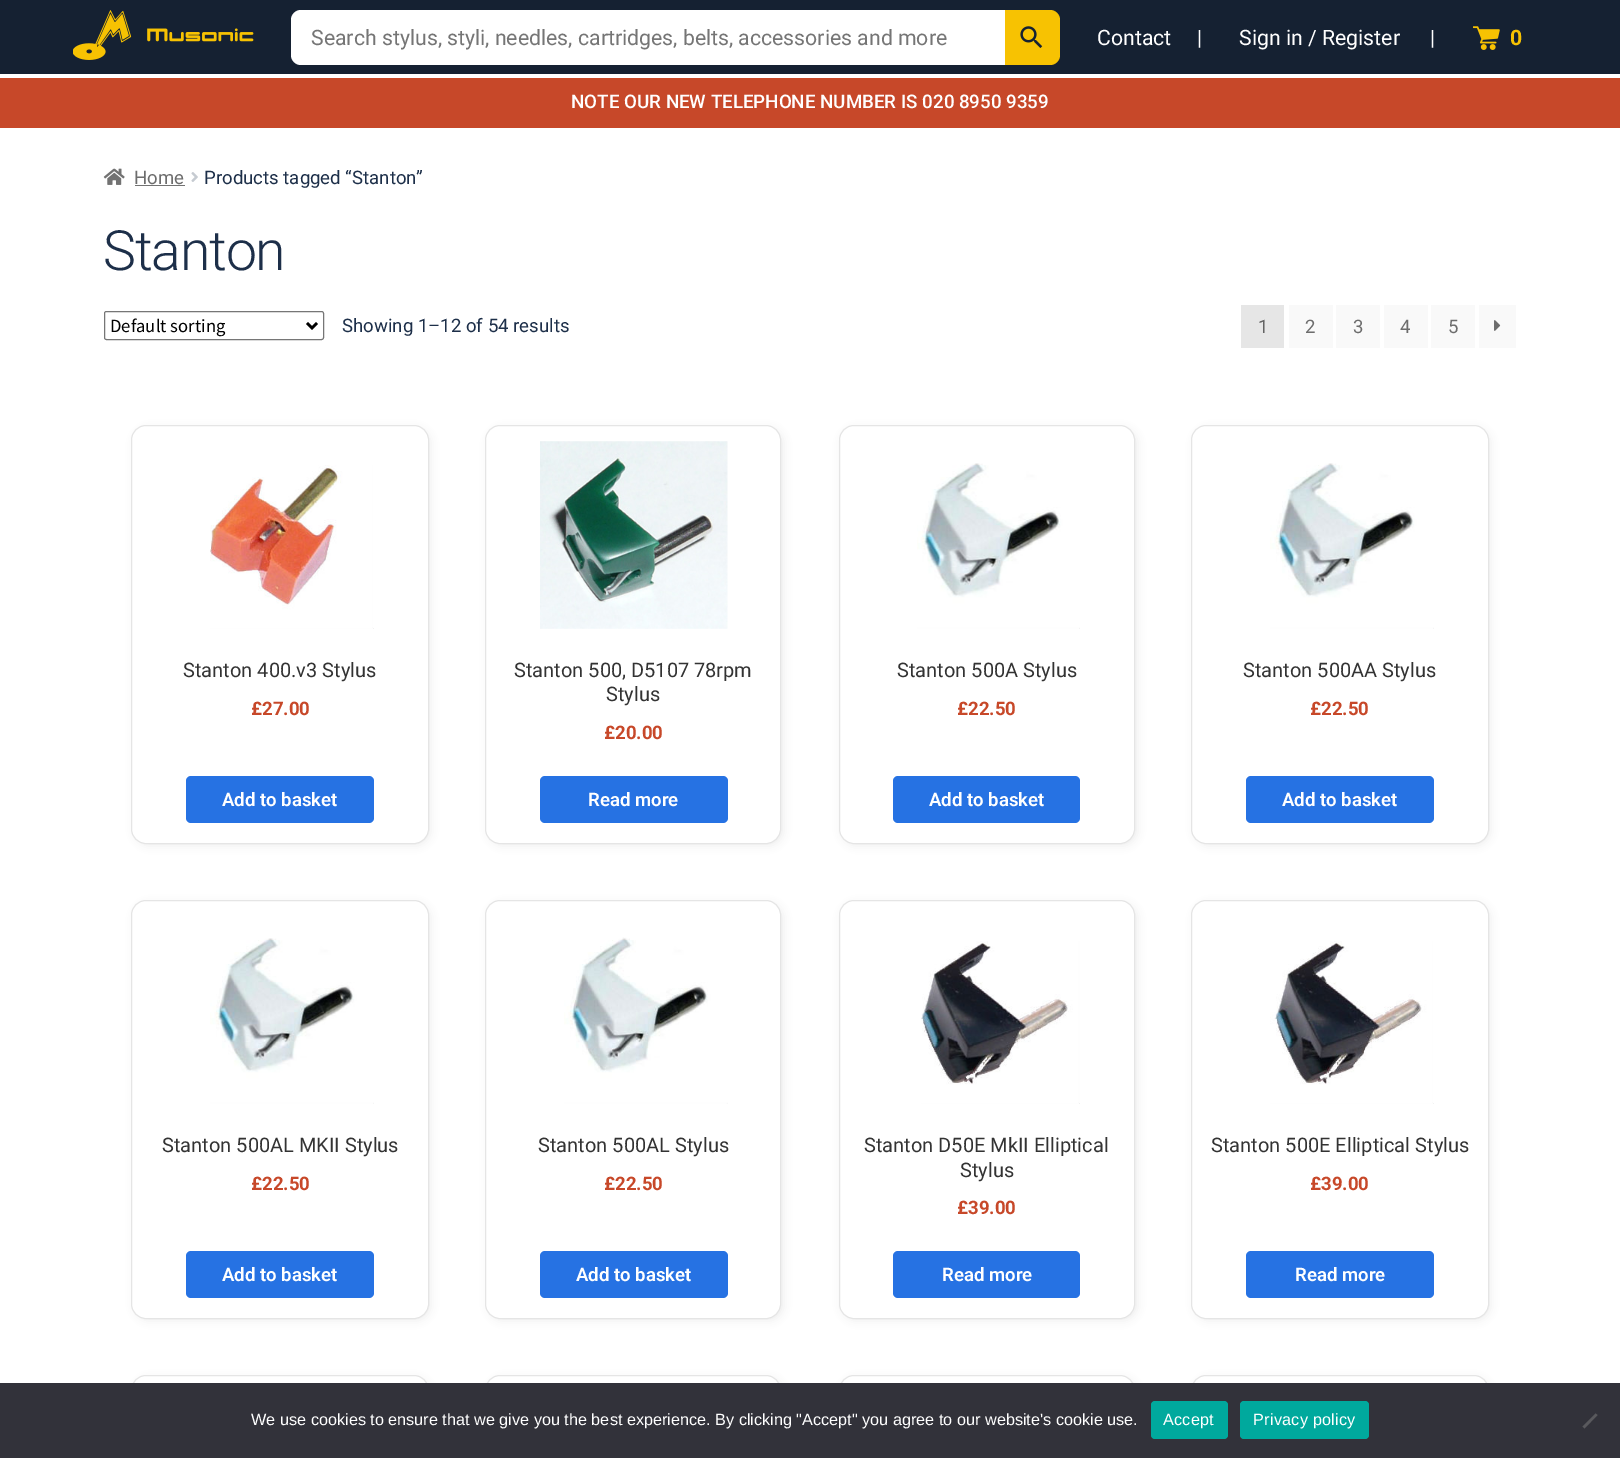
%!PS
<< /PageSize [1620 1458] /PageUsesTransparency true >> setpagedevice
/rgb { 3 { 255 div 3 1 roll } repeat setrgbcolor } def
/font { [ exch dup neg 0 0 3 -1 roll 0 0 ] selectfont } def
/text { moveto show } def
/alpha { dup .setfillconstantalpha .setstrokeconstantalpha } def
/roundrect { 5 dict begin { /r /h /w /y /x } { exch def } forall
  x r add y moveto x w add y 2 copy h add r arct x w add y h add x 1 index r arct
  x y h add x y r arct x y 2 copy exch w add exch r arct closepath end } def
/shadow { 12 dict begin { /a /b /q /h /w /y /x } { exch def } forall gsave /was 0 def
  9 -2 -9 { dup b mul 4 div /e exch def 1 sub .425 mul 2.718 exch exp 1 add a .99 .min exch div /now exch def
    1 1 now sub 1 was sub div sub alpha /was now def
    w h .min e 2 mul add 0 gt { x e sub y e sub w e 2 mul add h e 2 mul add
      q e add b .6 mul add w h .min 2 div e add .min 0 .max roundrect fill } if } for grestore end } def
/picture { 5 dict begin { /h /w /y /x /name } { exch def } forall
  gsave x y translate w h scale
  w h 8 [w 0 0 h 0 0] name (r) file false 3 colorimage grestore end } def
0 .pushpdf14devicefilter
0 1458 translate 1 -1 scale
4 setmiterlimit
255 255 255 rgb
0 0 1620 1458 rectfill
21 33 50 rgb
0 0 1620 74 rectfill
(img_01.rgb) 73 10 181 50 picture
247 194 2 rgb
1004 10 moveto 46 0 rlineto 5.5 0 10 4.5 10 10 rcurveto 0 35 rlineto 0 5.5 -4.5 10 -10 10 rcurveto -46 0 rlineto closepath fill
255 255 255 rgb
301 10 moveto 704 0 rlineto 0 55 rlineto -704 0 rlineto -5.5 0 -10 -4.5 -10 -10 rcurveto 0 -35 rlineto 0 -5.5 4.5 -10 10 -10 rcurveto closepath fill
(img_02.rgb) 1020 26 23 22 picture
(img_03.rgb) 1473 26 27 24 picture
199 72 41 rgb
0 78 1620 50 rectfill
(img_04.rgb) 103 168 22 17 picture
114 114 114 rgb
135 185 50 1 rectfill
(img_05.rgb) 191 172 7 10 picture
118 118 118 rgb
104.5 311.5 219 28 2 roundrect stroke
0 0 0 rgb
2.5 setlinewidth
307 323 moveto 5 5 rlineto 5 -5 rlineto stroke
230 230 230 rgb
1241 305 43 43 rectfill
249 249 249 rgb
1289 305 44 43 rectfill
1336 305 44 43 rectfill
1384 305 44 43 rectfill
1431 305 44 43 rectfill
1479 305 37 43 rectfill
(img_06.rgb) 1494 320 7 11 picture
gsave
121 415 moveto 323 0 rlineto 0 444 rlineto -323 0 rlineto closepath 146 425 moveto 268 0 rlineto 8.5 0 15 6.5 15 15 rcurveto 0 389 rlineto 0 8.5 -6.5 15 -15 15 rcurveto -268 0 rlineto -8.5 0 -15 -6.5 -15 -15 rcurveto 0 -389 rlineto 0 -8.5 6.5 -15 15 -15 rcurveto closepath eoclip newpath
238 238 238 rgb
134 428 297 418 15 4 1 shadow
grestore
229 229 229 rgb
1 setlinewidth
131.5 425.5 297 418 14.5 roundrect stroke
(img_07.rgb) 210 465 164 164 picture
38 114 227 rgb
186 776 188 47 5 roundrect fill
gsave
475 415 moveto 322 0 rlineto 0 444 rlineto -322 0 rlineto closepath 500 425 moveto 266 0 rlineto 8.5 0 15 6.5 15 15 rcurveto 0 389 rlineto 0 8.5 -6.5 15 -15 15 rcurveto -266 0 rlineto -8.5 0 -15 -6.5 -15 -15 rcurveto 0 -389 rlineto 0 -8.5 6.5 -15 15 -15 rcurveto closepath eoclip newpath
238 238 238 rgb
488 428 296 418 15 4 1 shadow
grestore
229 229 229 rgb
485.5 425.5 295 418 14.5 roundrect stroke
(img_08.rgb) 540 441 188 188 picture
38 114 227 rgb
540 776 188 47 5 roundrect fill
gsave
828 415 moveto 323 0 rlineto 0 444 rlineto -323 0 rlineto closepath 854 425 moveto 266 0 rlineto 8.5 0 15 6.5 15 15 rcurveto 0 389 rlineto 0 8.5 -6.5 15 -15 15 rcurveto -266 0 rlineto -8.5 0 -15 -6.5 -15 -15 rcurveto 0 -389 rlineto 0 -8.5 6.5 -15 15 -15 rcurveto closepath eoclip newpath
238 238 238 rgb
841 428 297 418 15 4 1 shadow
grestore
229 229 229 rgb
839.5 425.5 295 418 14.5 roundrect stroke
(img_09.rgb) 917 463 163 166 picture
38 114 227 rgb
893 776 187 47 5 roundrect fill
gsave
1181 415 moveto 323 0 rlineto 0 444 rlineto -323 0 rlineto closepath 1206 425 moveto 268 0 rlineto 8.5 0 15 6.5 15 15 rcurveto 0 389 rlineto 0 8.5 -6.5 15 -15 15 rcurveto -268 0 rlineto -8.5 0 -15 -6.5 -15 -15 rcurveto 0 -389 rlineto 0 -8.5 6.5 -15 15 -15 rcurveto closepath eoclip newpath
238 238 238 rgb
1194 428 297 418 15 4 1 shadow
grestore
229 229 229 rgb
1191.5 425.5 297 418 14.5 roundrect stroke
(img_10.rgb) 1270 463 164 166 picture
38 114 227 rgb
1246 776 188 47 5 roundrect fill
gsave
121 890 moveto 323 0 rlineto 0 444 rlineto -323 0 rlineto closepath 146 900 moveto 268 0 rlineto 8.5 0 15 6.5 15 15 rcurveto 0 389 rlineto 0 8.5 -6.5 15 -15 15 rcurveto -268 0 rlineto -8.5 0 -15 -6.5 -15 -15 rcurveto 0 -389 rlineto 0 -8.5 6.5 -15 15 -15 rcurveto closepath eoclip newpath
238 238 238 rgb
134 903 297 418 15 4 1 shadow
grestore
229 229 229 rgb
131.5 900.5 297 418 14.5 roundrect stroke
(img_11.rgb) 210 938 164 166 picture
38 114 227 rgb
186 1251 188 47 5 roundrect fill
gsave
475 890 moveto 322 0 rlineto 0 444 rlineto -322 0 rlineto closepath 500 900 moveto 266 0 rlineto 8.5 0 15 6.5 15 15 rcurveto 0 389 rlineto 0 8.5 -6.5 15 -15 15 rcurveto -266 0 rlineto -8.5 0 -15 -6.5 -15 -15 rcurveto 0 -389 rlineto 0 -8.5 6.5 -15 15 -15 rcurveto closepath eoclip newpath
238 238 238 rgb
488 903 296 418 15 4 1 shadow
grestore
229 229 229 rgb
485.5 900.5 295 418 14.5 roundrect stroke
(img_12.rgb) 564 937 164 167 picture
38 114 227 rgb
540 1251 188 47 5 roundrect fill
gsave
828 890 moveto 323 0 rlineto 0 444 rlineto -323 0 rlineto closepath 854 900 moveto 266 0 rlineto 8.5 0 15 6.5 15 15 rcurveto 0 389 rlineto 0 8.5 -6.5 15 -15 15 rcurveto -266 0 rlineto -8.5 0 -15 -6.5 -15 -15 rcurveto 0 -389 rlineto 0 -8.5 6.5 -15 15 -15 rcurveto closepath eoclip newpath
238 238 238 rgb
841 903 297 418 15 4 1 shadow
grestore
229 229 229 rgb
839.5 900.5 295 418 14.5 roundrect stroke
(img_13.rgb) 921 941 159 163 picture
38 114 227 rgb
893 1251 187 47 5 roundrect fill
gsave
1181 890 moveto 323 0 rlineto 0 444 rlineto -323 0 rlineto closepath 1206 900 moveto 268 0 rlineto 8.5 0 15 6.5 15 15 rcurveto 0 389 rlineto 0 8.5 -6.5 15 -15 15 rcurveto -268 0 rlineto -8.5 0 -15 -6.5 -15 -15 rcurveto 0 -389 rlineto 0 -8.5 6.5 -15 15 -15 rcurveto closepath eoclip newpath
238 238 238 rgb
1194 903 297 418 15 4 1 shadow
grestore
229 229 229 rgb
1191.5 900.5 297 418 14.5 roundrect stroke
(img_14.rgb) 1270 941 164 163 picture
38 114 227 rgb
1246 1251 188 47 5 roundrect fill
gsave
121 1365 moveto 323 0 rlineto 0 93 rlineto -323 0 rlineto closepath 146 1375 moveto 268 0 rlineto 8.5 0 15 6.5 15 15 rcurveto 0 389 rlineto 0 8.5 -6.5 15 -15 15 rcurveto -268 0 rlineto -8.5 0 -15 -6.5 -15 -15 rcurveto 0 -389 rlineto 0 -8.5 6.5 -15 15 -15 rcurveto closepath eoclip newpath
238 238 238 rgb
134 1378 297 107 15 4 1 shadow
grestore
229 229 229 rgb
131.5 1375.5 297 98 14.5 roundrect stroke
gsave
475 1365 moveto 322 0 rlineto 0 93 rlineto -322 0 rlineto closepath 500 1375 moveto 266 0 rlineto 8.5 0 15 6.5 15 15 rcurveto 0 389 rlineto 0 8.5 -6.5 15 -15 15 rcurveto -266 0 rlineto -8.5 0 -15 -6.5 -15 -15 rcurveto 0 -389 rlineto 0 -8.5 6.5 -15 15 -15 rcurveto closepath eoclip newpath
238 238 238 rgb
488 1378 296 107 15 4 1 shadow
grestore
485.5 1375.5 295 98 14.5 roundrect stroke
gsave
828 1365 moveto 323 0 rlineto 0 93 rlineto -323 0 rlineto closepath 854 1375 moveto 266 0 rlineto 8.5 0 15 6.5 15 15 rcurveto 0 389 rlineto 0 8.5 -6.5 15 -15 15 rcurveto -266 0 rlineto -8.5 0 -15 -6.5 -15 -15 rcurveto 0 -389 rlineto 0 -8.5 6.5 -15 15 -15 rcurveto closepath eoclip newpath
238 238 238 rgb
841 1378 297 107 15 4 1 shadow
grestore
839.5 1375.5 295 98 14.5 roundrect stroke
gsave
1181 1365 moveto 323 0 rlineto 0 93 rlineto -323 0 rlineto closepath 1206 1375 moveto 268 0 rlineto 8.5 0 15 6.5 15 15 rcurveto 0 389 rlineto 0 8.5 -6.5 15 -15 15 rcurveto -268 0 rlineto -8.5 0 -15 -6.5 -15 -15 rcurveto 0 -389 rlineto 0 -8.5 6.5 -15 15 -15 rcurveto closepath eoclip newpath
238 238 238 rgb
1194 1378 297 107 15 4 1 shadow
grestore
1191.5 1375.5 297 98 14.5 roundrect stroke
50 50 58 rgb
0 1383 1620 75 rectfill
0 169 157 rgb
1151 1401 77 38 4 roundrect fill
1240 1401 129 38 4 roundrect fill
89 89 93 rgb
1595.5 1413.5 moveto 2 1.5 rlineto -13 13.5 rlineto -2 -2 rlineto closepath fill
/Roboto-Regular 21.25 font
117 117 117 rgb
(Search stylus, styli, needles, cartridges, belts, accessories and more) 311 45 text
255 255 255 rgb
(Contact) 1097 45 text
(|) 1197 45 text
(Sign in / Register) 1239 45 text
(|) 1430 45 text
/Roboto-Bold 21.25 font
247 194 2 rgb
(0) 1510 45 text
/Roboto-Medium 18.75 font
255 255 255 rgb
(NOTE OUR NEW TELEPHONE NUMBER IS 020 8950 9359) 571 108 text
/Roboto-Regular 18.6 font
109 109 109 rgb
(Home) 134 184 text
29 47 73 rgb
(Products tagged “Stanton”) 204 184 text
/Roboto-Light 55.5 font
103 270 moveto -1.25 0 (Stanton) ashow
/SourceSansPro-Regular 18.6 font
0 0 0 rgb
(Default sorting) 110 332 text
/Roboto-Regular 18.6 font
29 47 73 rgb
(Showing 1–12 of 54 results) 342 332 text
99 99 99 rgb
(1) 1258 333 text
109 109 109 rgb
(2) 1305 333 text
(3) 1353 333 text
(4) 1400 333 text
(5) 1448 333 text
/Roboto-Regular 20 font
51 51 51 rgb
(Stanton 400.v3 Stylus) 183 677 text
/Roboto-Bold 18.6 font
199 72 41 rgb
(£27.00) 251 715 text
/Roboto-SemiBold 18.6 font
255 255 255 rgb
(Add to basket) 222 806 text
/Roboto-Regular 20 font
51 51 51 rgb
(Stanton 500, D5107 78rpm) 514 677 text
(Stylus) 606 701 text
/Roboto-Bold 18.6 font
199 72 41 rgb
(£20.00) 604 739 text
/Roboto-SemiBold 18.6 font
255 255 255 rgb
(Read more) 588 806 text
/Roboto-Regular 20 font
51 51 51 rgb
(Stanton 500A Stylus) 897 677 text
/Roboto-Bold 18.6 font
199 72 41 rgb
(£22.50) 957 715 text
/Roboto-SemiBold 18.6 font
255 255 255 rgb
(Add to basket) 929 806 text
/Roboto-Regular 20 font
51 51 51 rgb
(Stanton 500AA Stylus) 1243 677 text
/Roboto-Bold 18.6 font
199 72 41 rgb
(£22.50) 1310 715 text
/Roboto-SemiBold 18.6 font
255 255 255 rgb
(Add to basket) 1282 806 text
/Roboto-Regular 20 font
51 51 51 rgb
(Stanton 500AL MKII Stylus) 162 1152 text
/Roboto-Bold 18.6 font
199 72 41 rgb
(£22.50) 251 1190 text
/Roboto-SemiBold 18.6 font
255 255 255 rgb
(Add to basket) 222 1281 text
/Roboto-Regular 20 font
51 51 51 rgb
(Stanton 500AL Stylus) 538 1152 text
/Roboto-Bold 18.6 font
199 72 41 rgb
(£22.50) 604 1190 text
/Roboto-SemiBold 18.6 font
255 255 255 rgb
(Add to basket) 576 1281 text
/Roboto-Regular 20 font
51 51 51 rgb
(Stanton D50E MkII Elliptical) 864 1152 text
(Stylus) 960 1177 text
/Roboto-Bold 18.6 font
199 72 41 rgb
(£39.00) 957 1214 text
/Roboto-SemiBold 18.6 font
255 255 255 rgb
(Read more) 942 1281 text
/Roboto-Regular 20 font
51 51 51 rgb
(Stanton 500E Elliptical Stylus) 1211 1152 text
/Roboto-Bold 18.6 font
199 72 41 rgb
(£39.00) 1310 1190 text
/Roboto-SemiBold 18.6 font
255 255 255 rgb
(Read more) 1295 1281 text
/LiberationSans-Regular 16.25 font
(We use cookies to ensure that we give you the best experience. By clicking "Accept" you agree to our website's cookie use.) 251 1425 text
1163 1425 moveto 0.25 0 (Accept) ashow
1253 1425 moveto 0.25 0 (Privacy policy) ashow
.poppdf14devicefilter showpage
